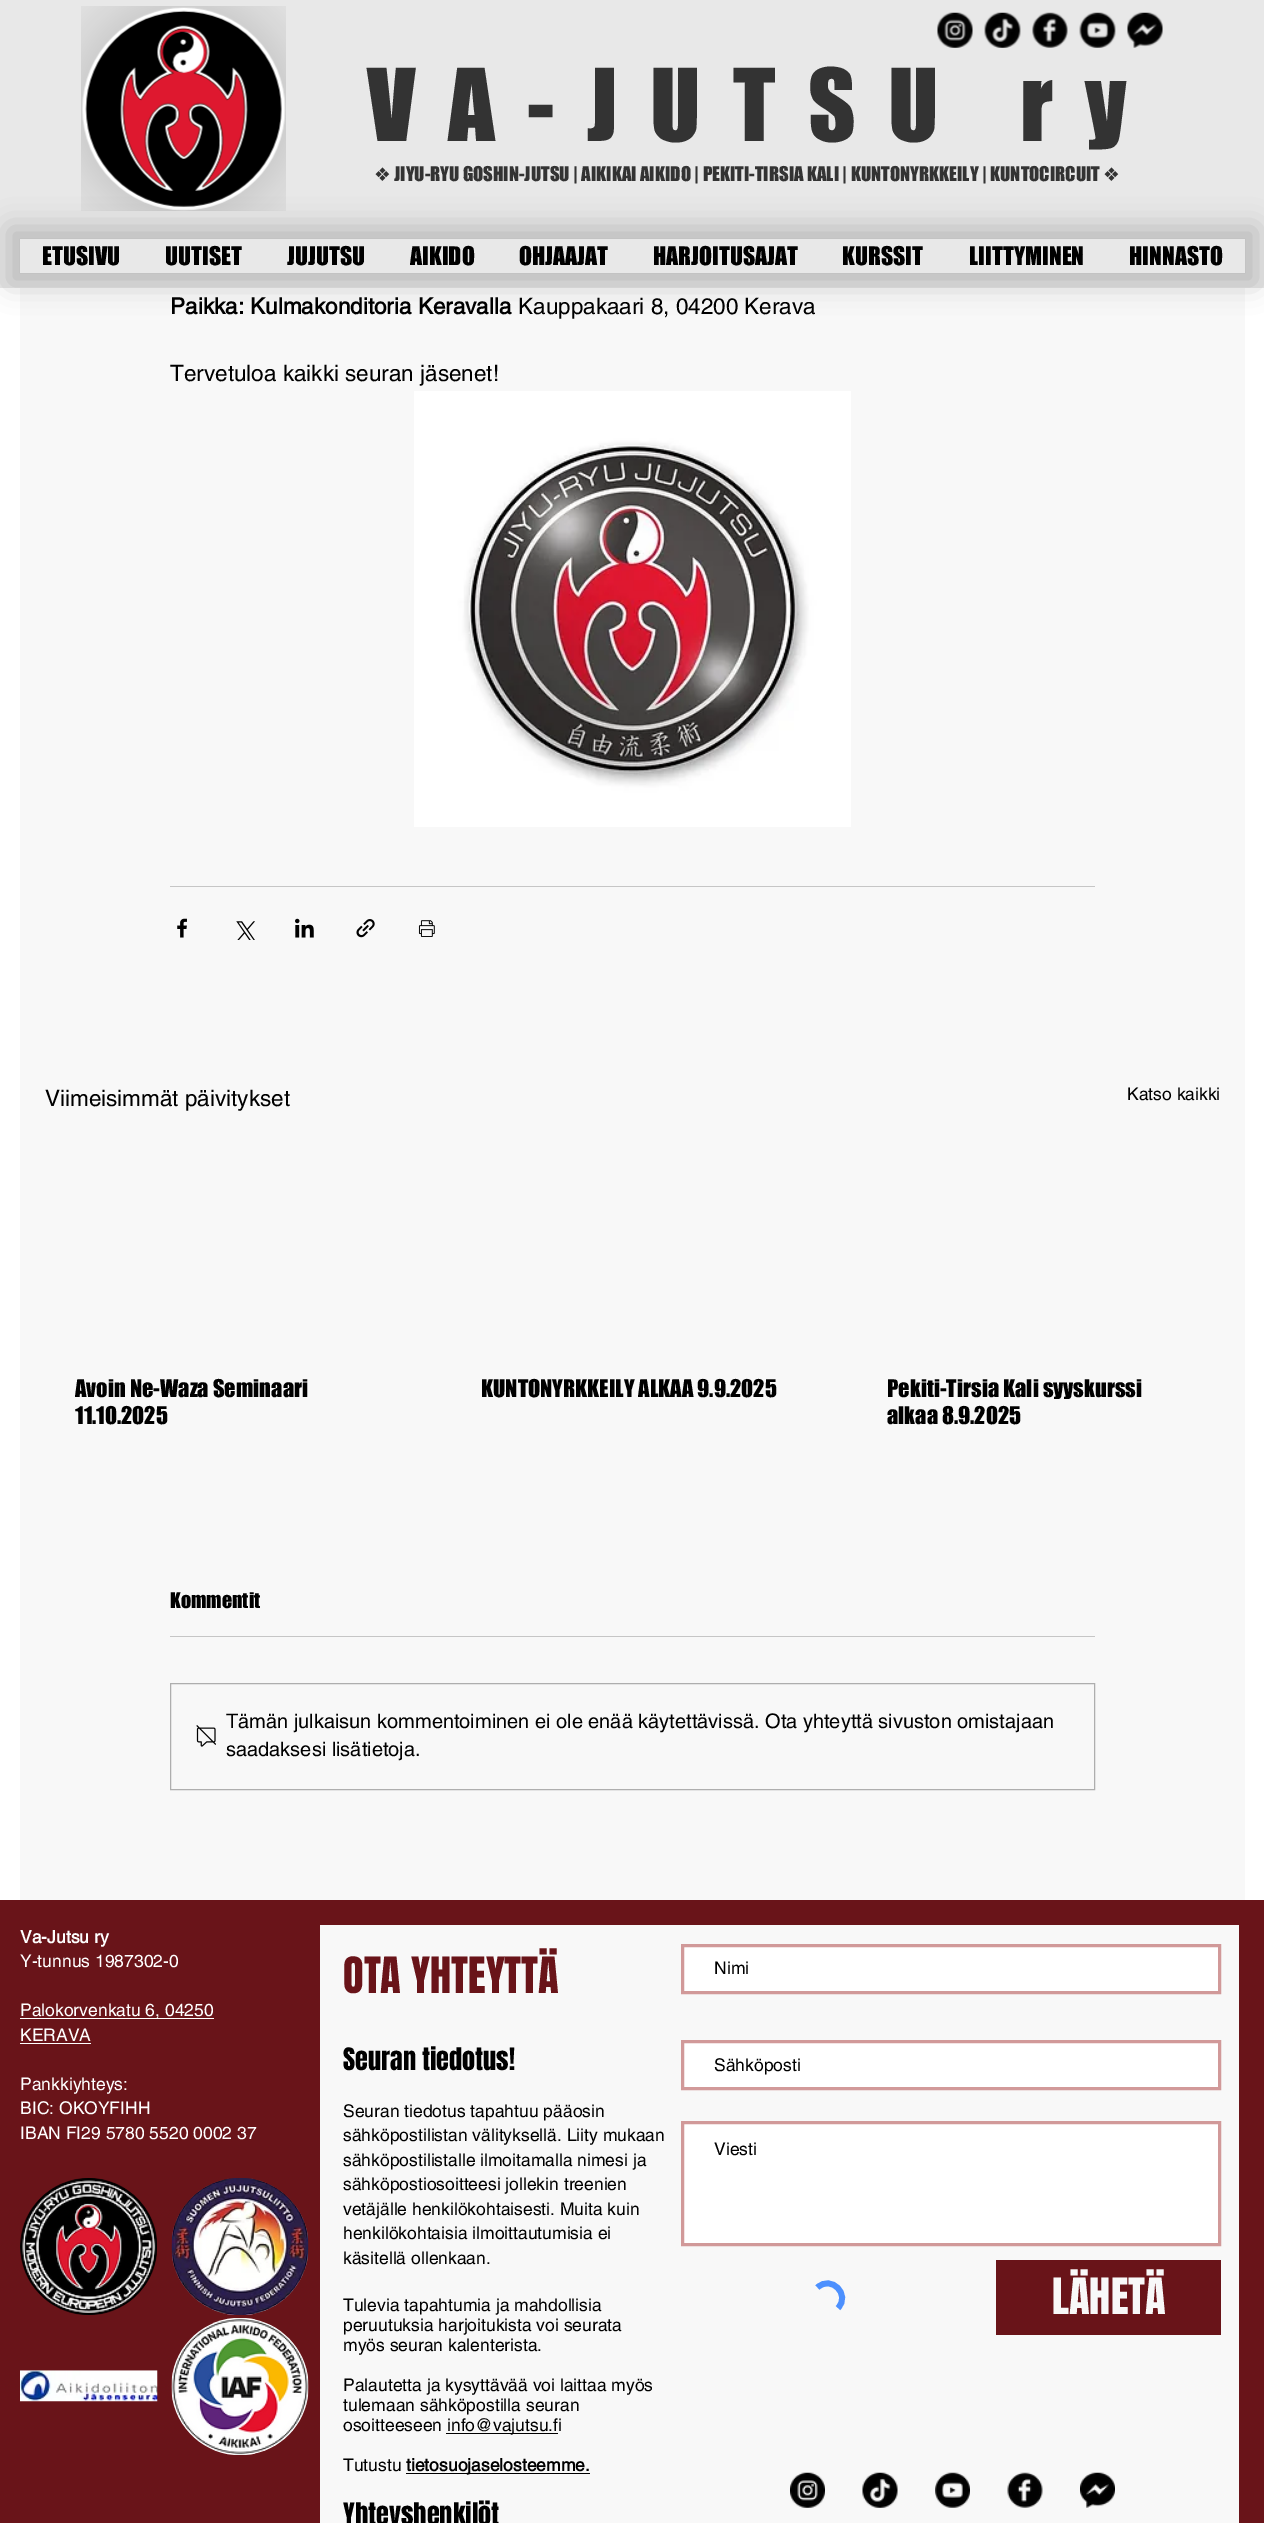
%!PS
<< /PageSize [1264 2523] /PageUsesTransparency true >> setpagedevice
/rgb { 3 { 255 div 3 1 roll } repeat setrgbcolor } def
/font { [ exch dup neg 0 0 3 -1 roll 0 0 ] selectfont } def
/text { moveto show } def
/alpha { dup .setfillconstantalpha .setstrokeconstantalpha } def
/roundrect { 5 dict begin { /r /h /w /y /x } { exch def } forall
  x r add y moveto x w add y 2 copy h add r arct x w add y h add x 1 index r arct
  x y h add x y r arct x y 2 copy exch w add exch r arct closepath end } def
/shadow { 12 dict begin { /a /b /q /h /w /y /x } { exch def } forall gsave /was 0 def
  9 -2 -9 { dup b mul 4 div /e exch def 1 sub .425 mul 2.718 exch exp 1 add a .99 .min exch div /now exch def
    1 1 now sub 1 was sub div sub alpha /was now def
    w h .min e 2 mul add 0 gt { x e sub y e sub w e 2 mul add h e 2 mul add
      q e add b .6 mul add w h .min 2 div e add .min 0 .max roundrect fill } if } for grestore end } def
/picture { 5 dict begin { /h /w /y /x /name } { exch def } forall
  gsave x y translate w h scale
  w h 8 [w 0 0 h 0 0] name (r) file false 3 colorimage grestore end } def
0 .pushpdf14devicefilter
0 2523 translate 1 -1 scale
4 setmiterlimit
255 255 255 rgb
0 0 1264 2523 rectfill
232 232 232 rgb
0 0 1264 288 rectfill
(img_01.rgb) 81 6 205 205 picture
(img_02.rgb) 937 12 36 36 picture
(img_03.rgb) 984 12 37 36 picture
(img_04.rgb) 1032 12 36 36 picture
(img_05.rgb) 1079 12 37 36 picture
(img_06.rgb) 1127 12 36 36 picture
248 248 248 rgb
20 288 1225 1612 rectfill
0 0 0 rgb
9 228 1247 56 0 14 0.2 shadow
232 232 232 rgb
20 239 1225 34 rectfill
(img_07.rgb) 414 391 437 436 picture
198 198 198 rgb
170 886 925 1 rectfill
(img_08.rgb) 177 918 10 20 picture
(img_09.rgb) 236 921 19 19 picture
(img_10.rgb) 295 918 19 20 picture
(img_11.rgb) 356 919 19 19 picture
(img_12.rgb) 418 920 17 17 picture
170 1636 925 1 rectfill
174 174 174 rgb
170.5 1683.5 924 106 rectstroke
(img_13.rgb) 196 1725 20 22 picture
105 20 25 rgb
0 1900 1264 623 rectfill
255 255 255 rgb
20 2018 194 1 rectfill
20 2043 71 1 rectfill
248 248 248 rgb
320 1925 919 598 rectfill
255 255 255 rgb
682.5 1945.5 moveto 537 0 rlineto 0 47 rlineto -537 0 rlineto closepath gsave fill grestore
209 153 153 rgb
3 setlinewidth
stroke
0 0 0 rgb
446 2433 112 1 rectfill
406 2473 184 1 rectfill
255 255 255 rgb
682.5 2041.5 moveto 537 0 rlineto 0 47 rlineto -537 0 rlineto closepath gsave fill grestore
209 153 153 rgb
stroke
255 255 255 rgb
682.5 2122.5 moveto 537 0 rlineto 0 122 rlineto -537 0 rlineto closepath gsave fill grestore
209 153 153 rgb
stroke
77 144 254 rgb
5.8 setlinewidth
817.5 2287.5 moveto 13.5 -13 33.5 7 20.5 20.5 rcurveto stroke
105 20 25 rgb
996 2260 225 75 rectfill
(img_14.rgb) 790 2472 35 36 picture
(img_15.rgb) 862 2472 36 36 picture
(img_16.rgb) 935 2472 35 36 picture
(img_17.rgb) 1007 2472 36 36 picture
(img_18.rgb) 1080 2472 35 36 picture
(img_19.rgb) 20 2178 137 137 picture
(img_20.rgb) 171 2178 138 137 picture
(img_21.rgb) 20 2370 138 32 picture
(img_22.rgb) 171 2318 138 137 picture
/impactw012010-Regular 92.5 font
51 51 51 rgb
367 141 moveto 32.4 0 (VA-JUTSU r) ashow
(y) 1085 141 text
/DejaVuSans-Regular 18.75 font
(❖) 374 181 text
/impactw012010-Regular 18.75 font
(JIYU-RYU GOSHIN-JUTSU | AIKIKAI AIKIDO | PEKITI-TIRSIA KALI | KUNTONYRKKEILY | KUNTOCIRCUIT) 394 181 text
/DejaVuSans-Regular 18.75 font
(❖) 1103 181 text
/impactw012010-Regular 23.75 font
0 0 0 rgb
(ETUSIVU) 42 265 text
(UUTISET) 165 265 text
(JUJUTSU) 287 265 text
(AIKIDO) 410 265 text
(OHJAAJAT) 519 265 text
(HARJOITUSAJAT) 653 265 text
(KURSSIT) 842 265 text
(LIITTYMINEN) 969 265 text
(HINNASTO) 1129 265 text
/helvetica-Bold 22.5 font
(Paikka: Kulmakonditoria Keravalla) 170 314 text
/helvetica-Regular 22.5 font
(Kauppakaari 8, 04200 Kerava) 518 314 text
(Tervetuloa kaikki seuran jäsenet!) 170 381 text
(Viimeisimmät päivitykset) 45 1106 text
/helvetica-Regular 17.5 font
(Katso kaikki) 1127 1100 text
/impactw012010-Regular 22.5 font
(Avoin Ne-Waza Seminaari) 75 1397 text
(11.10.2025) 75 1424 text
(KUNTONYRKKEILY ALKAA 9.9.2025) 481 1397 text
(Pekiti-Tirsia Kali syyskurssi) 887 1397 text
(alkaa 8.9.2025) 887 1424 text
/impactw012010-Regular 20 font
(Kommentit) 170 1608 text
/helvetica-Regular 20 font
(Tämän julkaisun kommentoiminen ei ole enää käytettävissä. Ota yhteyttä sivuston omistajaan) 226 1728 text
(saadaksesi lisätietoja.) 226 1756 text
/helvetica-Bold 17.5 font
255 255 255 rgb
(Va-Jutsu ry) 20 1943 text
/helvetica-Regular 17.5 font
(Y-tunnus 1987302-0) 20 1967 text
(Palokorvenkatu 6, 04250) 20 2016 text
(KERAVA) 20 2041 text
(Pankkiyhteys:) 20 2090 text
(BIC: OKOYFIHH) 20 2114 text
(IBAN FI29 5780 5520 0002 37) 20 2139 text
/Anton-Regular 42.5 font
105 20 25 rgb
(OTA YHTEYTTÄ) 343 1993 text
/helvetica-Regular 17.5 font
0 0 0 rgb
(Nimi) 714 1974 text
/Anton-Regular 26.25 font
(Seuran tiedotus!) 343 2070 text
/helvetica-Regular 17.5 font
(Seuran tiedotus tapahtuu pääosin) 343 2117 text
(sähköpostilistan välityksellä. Liity mukaan) 343 2141 text
(sähköpostilistalle ilmoitamalla nimesi ja) 343 2166 text
(sähköpostiosoitteesi jollekin treenien) 343 2190 text
(vetäjälle henkilökohtaisesti. Muita kuin) 343 2215 text
(henkilökohtaisia ilmoittautumisia ei) 343 2239 text
(käsitellä ollenkaan.) 343 2264 text
(Tulevia tapahtumia ja mahdollisia) 343 2311 text
(peruutuksia harjoitukista voi seurata) 343 2331 text
(myös seuran kalenterista.) 343 2351 text
(Palautetta ja kysyttävää voi laittaa myös) 343 2391 text
(tulemaan sähköpostilla seuran) 343 2411 text
(osoitteeseen) 343 2431 text
(info@vajutsu.fi) 447 2431 text
(Tutustu) 343 2471 text
/helvetica-Bold 17.5 font
(tietosuojaselosteemme.) 406 2471 text
/Anton-Regular 26.25 font
(Yhteyshenkilöt) 343 2525 text
/helvetica-Regular 17.5 font
(Sähköposti) 714 2071 text
(Viesti) 714 2155 text
/Anton-Regular 42.5 font
248 248 248 rgb
(LÄHETÄ) 1052 2314 text
.poppdf14devicefilter showpage
